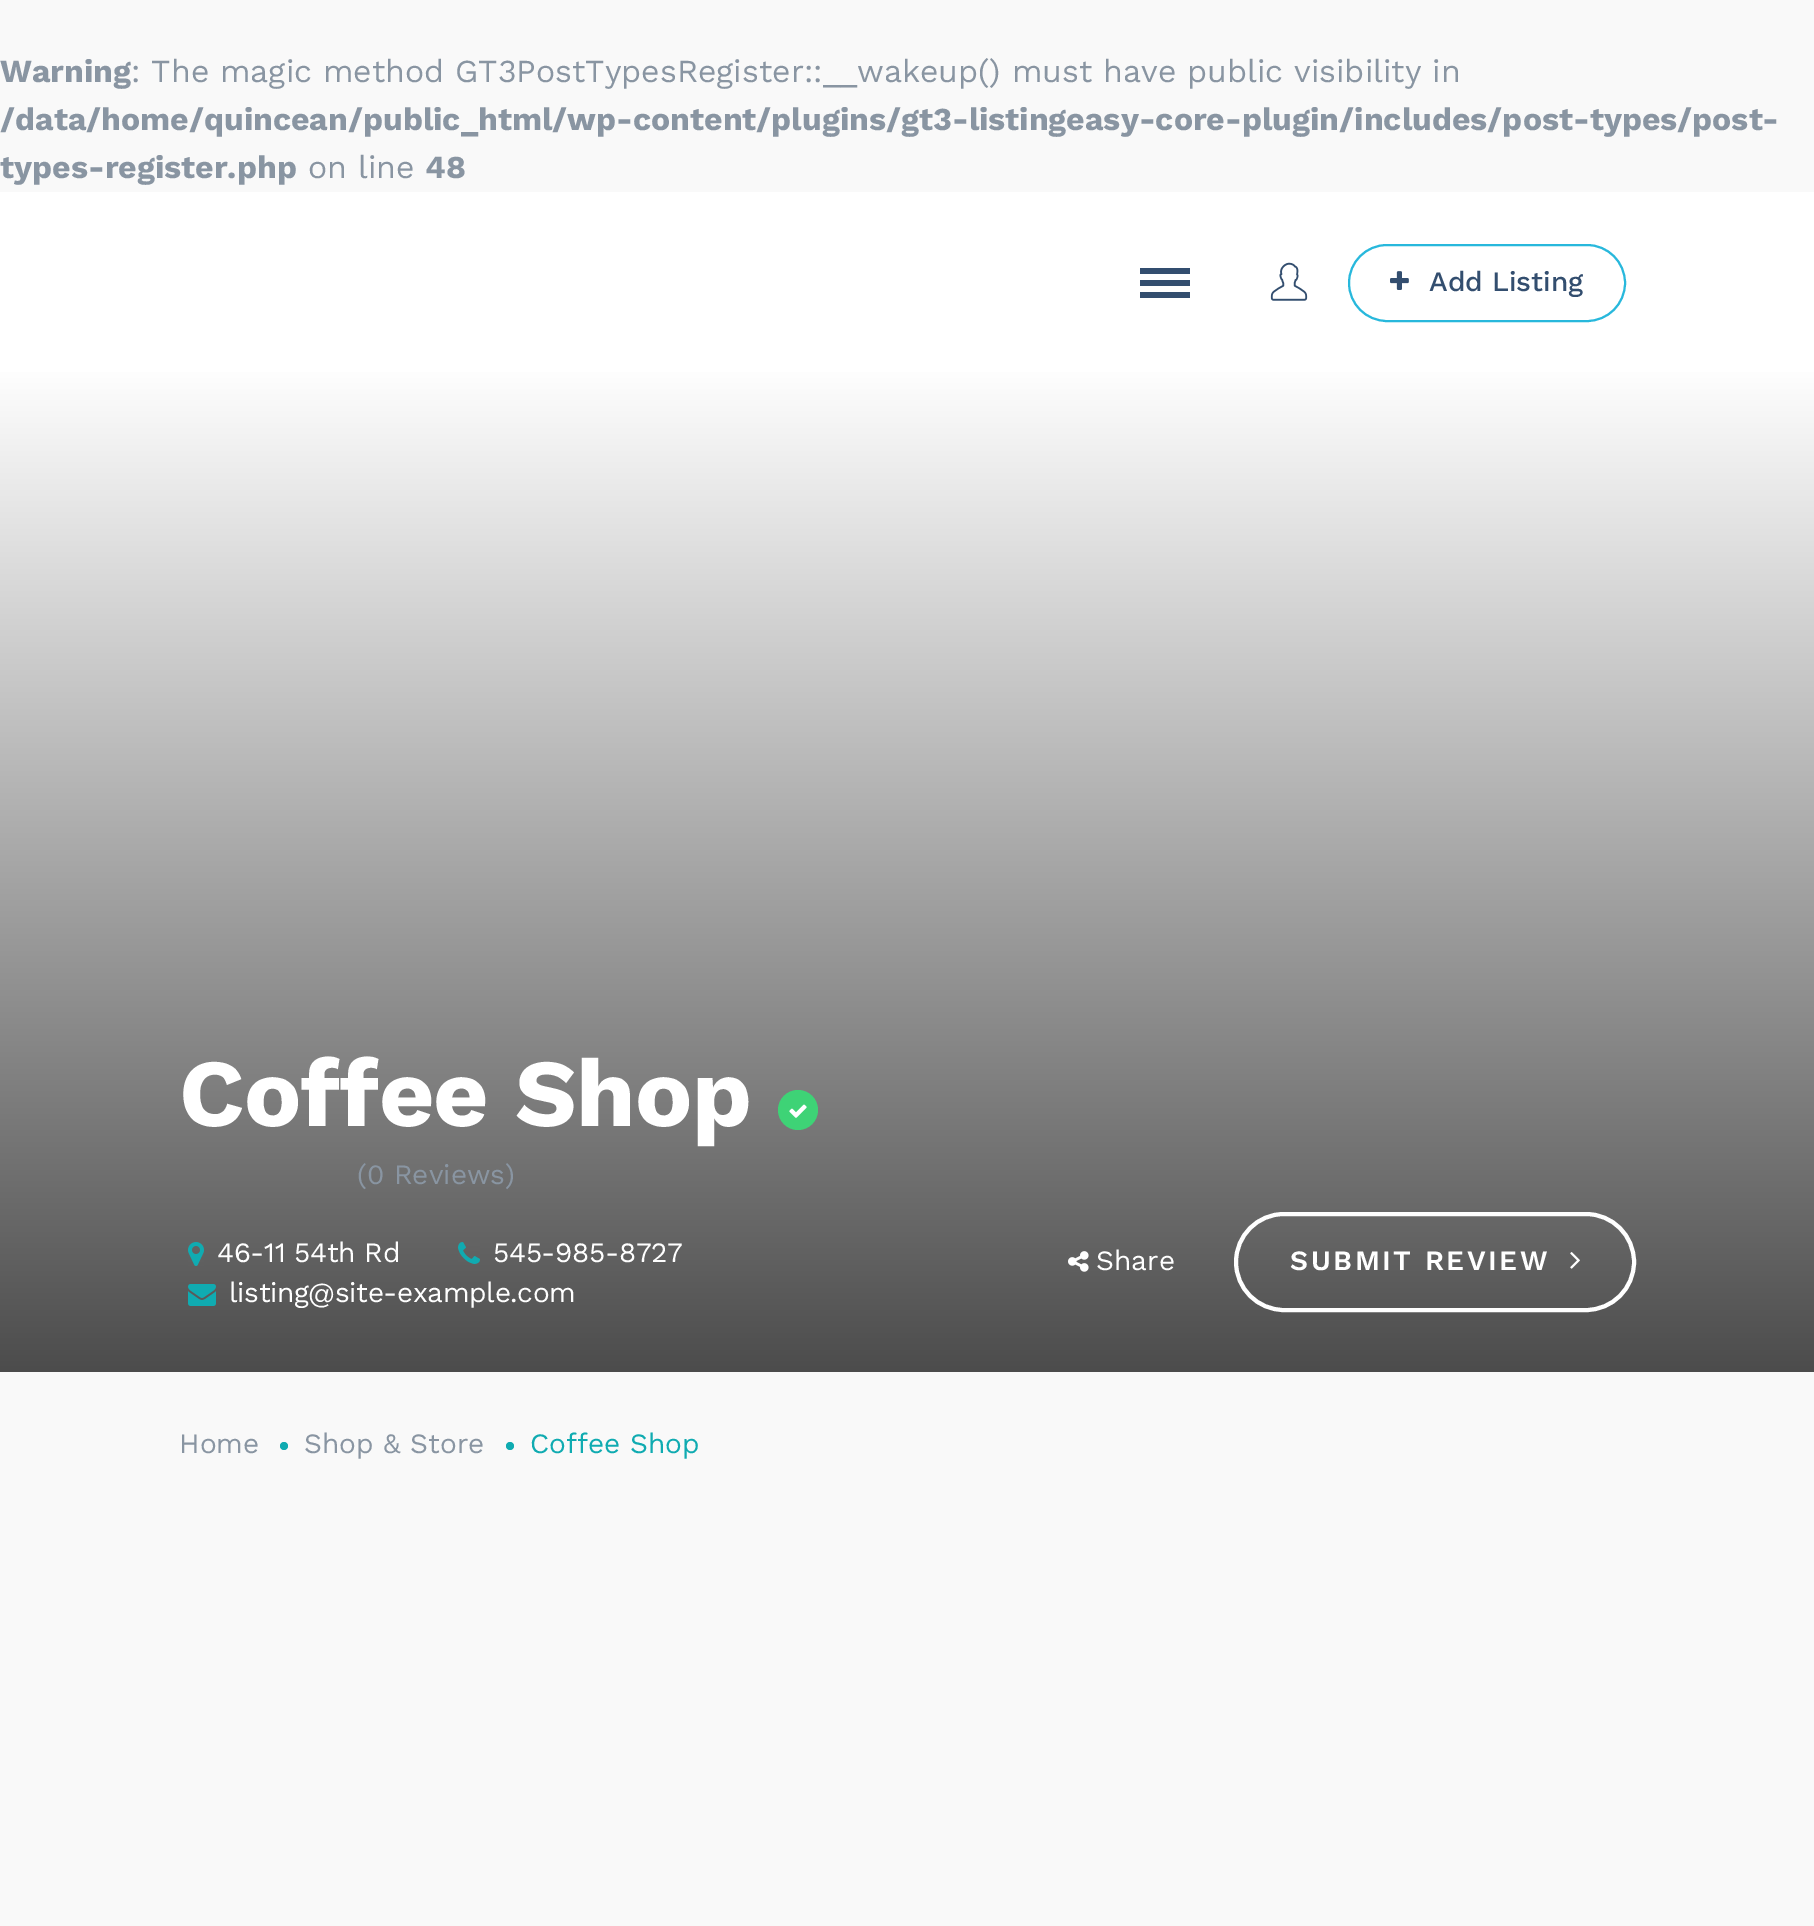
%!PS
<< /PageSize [1814 1926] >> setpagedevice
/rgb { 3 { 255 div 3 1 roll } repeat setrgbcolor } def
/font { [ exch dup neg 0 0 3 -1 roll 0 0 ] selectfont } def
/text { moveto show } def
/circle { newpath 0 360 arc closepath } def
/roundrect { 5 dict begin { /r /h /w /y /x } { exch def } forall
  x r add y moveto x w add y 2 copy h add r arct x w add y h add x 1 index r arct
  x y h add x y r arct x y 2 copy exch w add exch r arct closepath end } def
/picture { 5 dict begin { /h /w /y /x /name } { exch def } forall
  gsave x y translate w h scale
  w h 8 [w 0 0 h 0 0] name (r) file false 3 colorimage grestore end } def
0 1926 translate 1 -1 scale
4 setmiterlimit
249 249 249 rgb
0 0 1814 1926 rectfill
255 255 255 rgb
0 192 1814 180 rectfill
51 78 111 rgb
1140 280 50 6 rectfill
1140 268 50 6 rectfill
1140 292 50 6 rectfill
(img_01.rgb) 1270 262 38 39 picture
40 184 220 rgb
2 setlinewidth
1349 245 276 76 38 roundrect stroke
(img_02.rgb) 1390 271 19 19 picture
gsave 0 372 moveto 1814 0 rlineto 0 1000 rlineto -1814 0 rlineto closepath clip newpath
<< /ShadingType 2 /ColorSpace /DeviceRGB /Coords [907 372 907 1372] /Extend [true true] /Function << /FunctionType 2 /Domain [0 1] /C0 [0.996 0.996 0.996] /C1 [0.298 0.298 0.298] /N 1 >> >> shfill grestore
62 211 118 rgb
798 1110 20 circle fill
(img_03.rgb) 789 1104 18 14 picture
(img_04.rgb) 188 1242 16 24 picture
(img_05.rgb) 458 1242 22 22 picture
(img_06.rgb) 188 1284 28 22 picture
(img_07.rgb) 1068 1251 21 21 picture
255 255 255 rgb
4 setlinewidth
1236 1214 398 96 48 roundrect stroke
(img_08.rgb) 1570 1252 10 17 picture
16 171 177 rgb
284 1446 4 circle fill
510 1446 4 circle fill
/WorkSans-Bold 32 font
137 149 162 rgb
(Warning) 0 82 text
/WorkSans-Regular 32 font
(: The magic method GT3PostTypesRegister::__wakeup\(\) must have public visibility in) 131 82 text
/WorkSans-Bold 32 font
(/data/home/quincean/public_html/wp-content/plugins/gt3-listingeasy-core-plugin/includes/post-types/post-) 0 130 text
(types-register.php) 0 178 text
/WorkSans-Regular 32 font
(on line) 308 178 text
/WorkSans-Bold 32 font
(48) 425 178 text
/WorkSans-Medium 28 font
51 78 111 rgb
(Add Listing) 1429 291 text
/WorkSans-Bold 96 font
255 255 255 rgb
179 1126 moveto -0.75 0 (Coffee Shop) ashow
/WorkSans-Regular 28 font
137 149 162 rgb
(\(0 Reviews\)) 357 1184 text
255 255 255 rgb
217 1262 moveto -0.4 0 (46-11 54th Rd) ashow
493 1262 moveto -0.4 0 (545-985-8727) ashow
229 1302 moveto -0.4 0 (listing@site-example.com) ashow
(Share) 1096 1270 text
/WorkSans-SemiBold 28 font
1290 1270 moveto 2.6 0 (SUBMIT REVIEW) ashow
/WorkSans-Regular 28 font
137 149 162 rgb
(Home) 179 1453 text
(Shop & Store) 304 1453 text
16 171 177 rgb
(Coffee Shop) 530 1453 text
showpage
